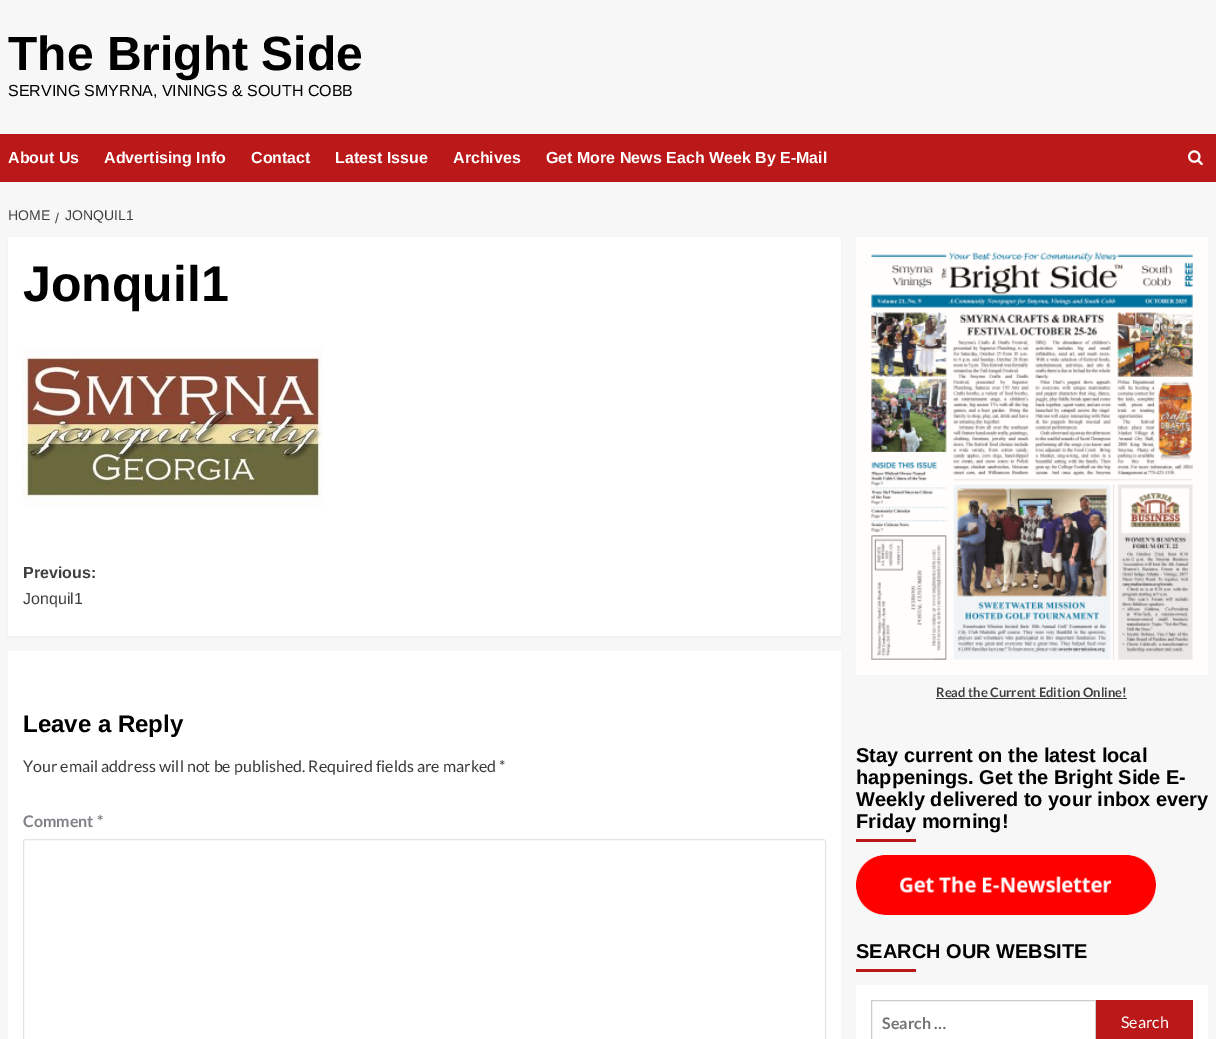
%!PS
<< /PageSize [1216 1039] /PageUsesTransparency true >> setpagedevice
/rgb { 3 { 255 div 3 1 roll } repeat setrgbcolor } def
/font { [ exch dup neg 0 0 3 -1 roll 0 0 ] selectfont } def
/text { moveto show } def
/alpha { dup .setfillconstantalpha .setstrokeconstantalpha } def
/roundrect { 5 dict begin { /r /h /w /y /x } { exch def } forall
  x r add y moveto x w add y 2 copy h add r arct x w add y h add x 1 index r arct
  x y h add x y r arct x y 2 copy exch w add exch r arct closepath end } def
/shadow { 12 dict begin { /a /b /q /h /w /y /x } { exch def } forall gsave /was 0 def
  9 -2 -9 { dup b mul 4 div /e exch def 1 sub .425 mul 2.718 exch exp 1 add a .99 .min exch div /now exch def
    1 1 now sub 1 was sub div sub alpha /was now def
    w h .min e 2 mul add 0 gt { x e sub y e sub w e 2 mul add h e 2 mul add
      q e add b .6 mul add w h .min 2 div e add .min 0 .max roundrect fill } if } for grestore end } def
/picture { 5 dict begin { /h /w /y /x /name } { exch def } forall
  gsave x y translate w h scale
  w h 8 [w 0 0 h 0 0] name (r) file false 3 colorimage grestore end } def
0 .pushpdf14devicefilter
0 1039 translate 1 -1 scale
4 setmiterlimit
247 247 247 rgb
0 0 1216 1039 rectfill
187 25 25 rgb
0 134 1216 48 rectfill
(img_01.rgb) 1188 150 15 16 picture
0 0 0 rgb
8 238 833 399 0 1 0.05 shadow
255 255 255 rgb
8 237 833 399 rectfill
(img_02.rgb) 23 347 300 159 picture
8 651 833 388 rectfill
228 228 228 rgb
23.5 839.5 802 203 2.5 roundrect stroke
(img_03.rgb) 856 237 352 438 picture
64 64 64 rgb
936 698 191 1 rectfill
187 25 25 rgb
856 839 60 3 rectfill
(img_04.rgb) 856 855 300 60 picture
856 969 60 3 rectfill
255 255 255 rgb
856 985 352 54 rectfill
204 204 204 rgb
871.5 1000.5 224 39 rectstroke
187 25 25 rgb
1096 1000 97 39 rectfill
/LiberationSans-Bold 48 font
0 0 0 rgb
(The Bright Side) 8 70 text
/LiberationSans-Regular 16 font
(SERVING SMYRNA, VININGS & SOUTH COBB) 8 96 text
/LiberationSans-Bold 16 font
255 255 255 rgb
(About Us) 8 163 text
(Advertising Info) 104 163 text
(Contact) 251 163 text
(Latest Issue) 335 163 text
(Archives) 453 163 text
(Get More News Each Week By E-Mail) 546 163 text
/LiberationSans-Regular 14 font
64 64 64 rgb
(HOME) 8 220 text
(/) 55 223 text
(JONQUIL1) 65 220 text
/LiberationSans-Bold 50 font
0 0 0 rgb
(Jonquil1) 23 301 text
/LiberationSans-Bold 16 font
64 64 64 rgb
(Previous:) 23 578 text
/LiberationSans-Regular 16 font
(Jonquil1) 23 604 text
/LiberationSans-Bold 24 font
0 0 0 rgb
(Leave a Reply) 23 732 text
/Lato-Regular 16 font
58 58 58 rgb
(Your email address will not be published. Required fields are marked *) 23 772 text
/Lato-Bold 16 font
128 128 134 rgb
(Comment *) 23 827 text
/Lato-Bold 13 font
64 64 64 rgb
(Read the Current Edition Online!) 936 697 text
/LiberationSans-Bold 20 font
0 0 0 rgb
(Stay current on the latest local) 856 762 text
(happenings. Get the Bright Side E-) 856 784 text
(Weekly delivered to your inbox every) 856 806 text
(Friday morning!) 856 828 text
(SEARCH OUR WEBSITE) 856 958 text
/Lato-Bold 16 font
117 117 117 rgb
(Search …) 882 1029 text
/Lato-Regular 16 font
255 255 255 rgb
(Search) 1121 1028 text
.poppdf14devicefilter showpage
